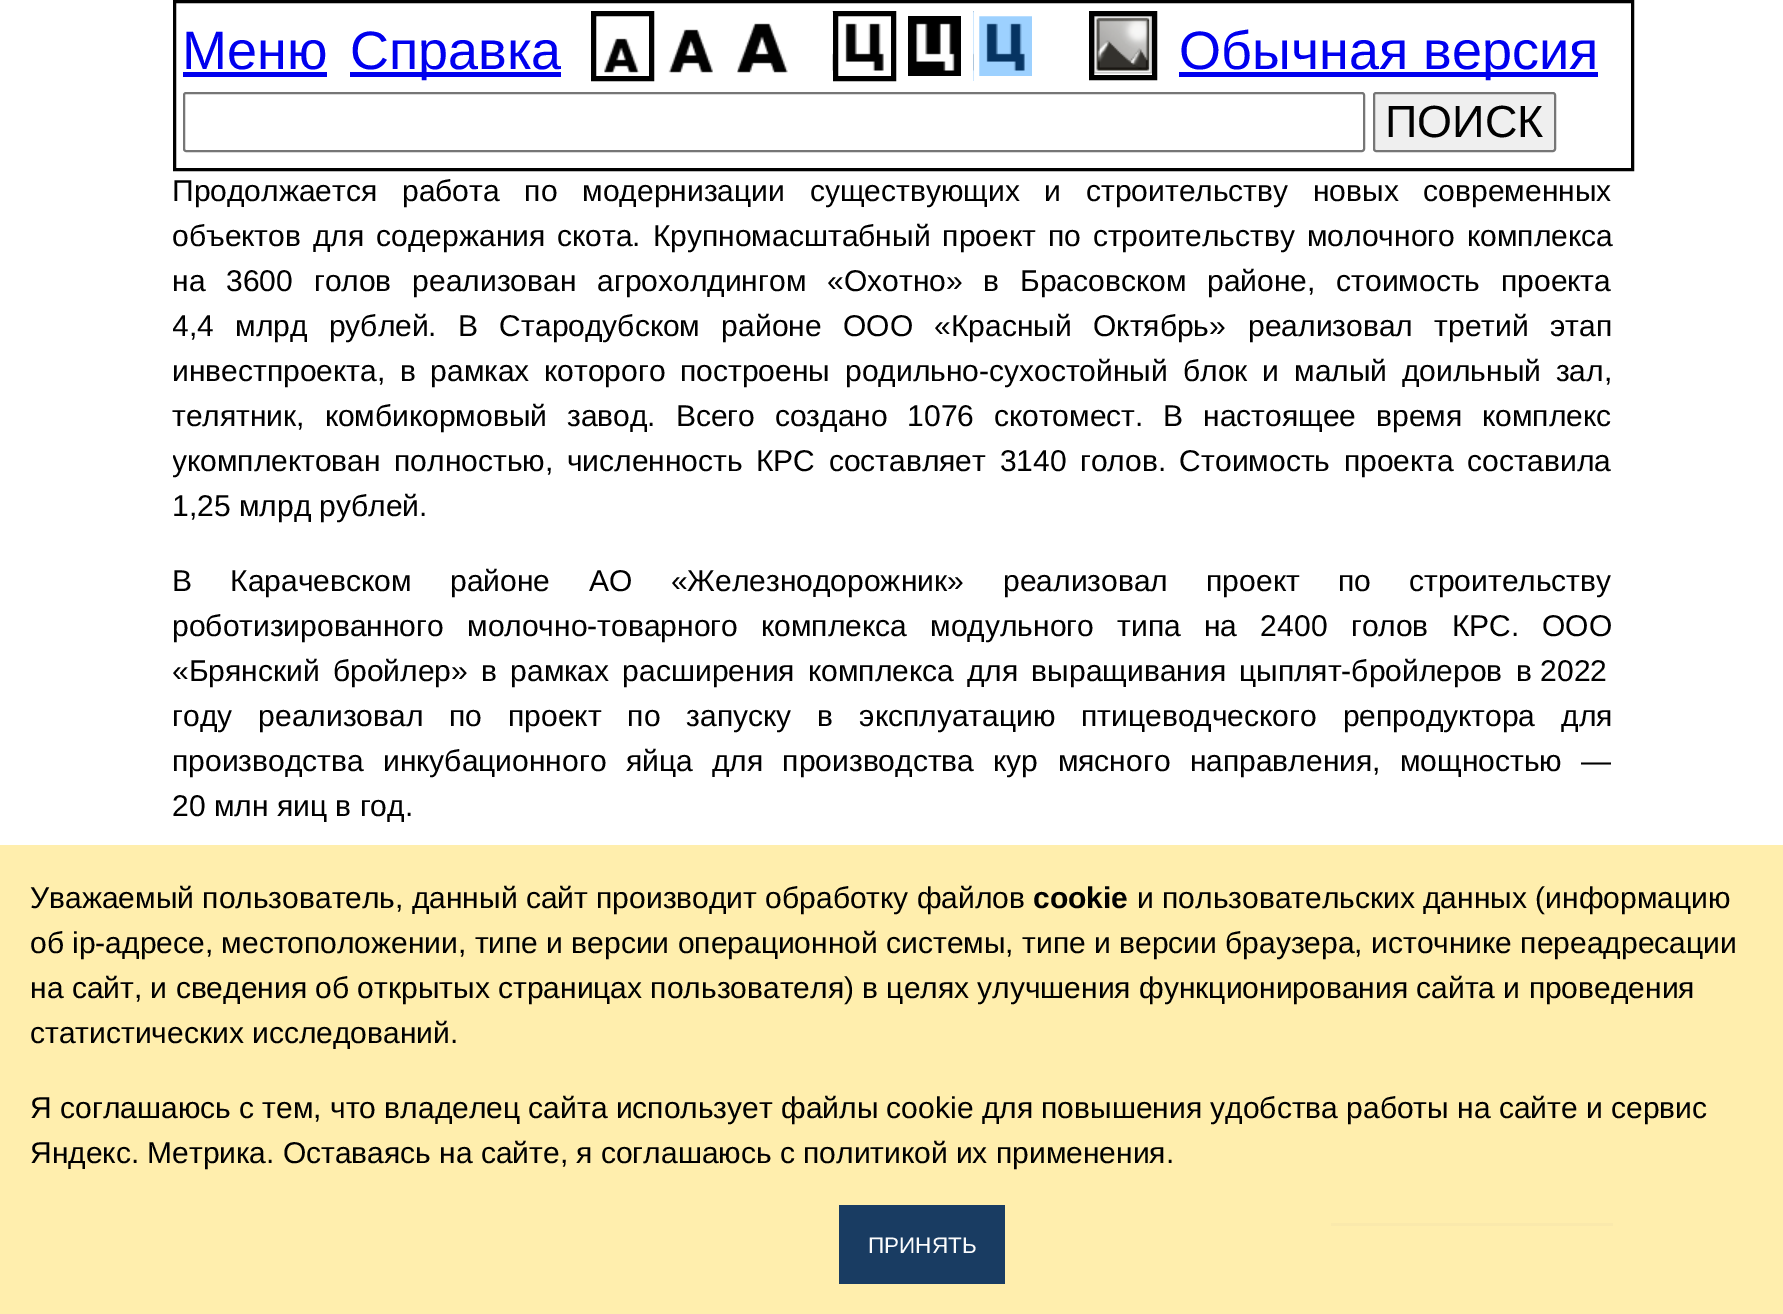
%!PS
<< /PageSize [1783 1314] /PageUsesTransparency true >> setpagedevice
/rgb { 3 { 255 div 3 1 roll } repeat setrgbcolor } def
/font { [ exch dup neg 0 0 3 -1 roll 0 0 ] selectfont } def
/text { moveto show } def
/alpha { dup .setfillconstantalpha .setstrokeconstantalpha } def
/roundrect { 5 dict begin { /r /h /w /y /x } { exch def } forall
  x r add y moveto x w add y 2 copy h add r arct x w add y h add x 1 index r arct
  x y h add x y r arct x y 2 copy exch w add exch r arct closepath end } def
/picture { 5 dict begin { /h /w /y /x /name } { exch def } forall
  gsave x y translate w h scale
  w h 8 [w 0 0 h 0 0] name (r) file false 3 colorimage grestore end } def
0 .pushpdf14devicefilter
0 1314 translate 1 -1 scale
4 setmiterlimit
255 255 255 rgb
0 0 1783 1314 rectfill
255 238 173 rgb
0 845 1783 469 rectfill
0 0 0 rgb
3 setlinewidth
174.5 1.5 1458 168 rectstroke
0 0 238 rgb
183 72 144 5 rectfill
350 72 211 5 rectfill
(img_01.rgb) 604 38 36 35 picture
0 0 0 rgb
5 setlinewidth
593.5 13.5 58 65 rectstroke
(img_02.rgb) 668 29 45 44 picture
(img_03.rgb) 737 23 51 50 picture
(img_04.rgb) 832 11 52 60 picture
835.5 13.5 58 65 rectstroke
(img_05.rgb) 908 16 53 60 picture
(img_06.rgb) 973 11 59 70 picture
255 255 255 rgb
976.5 13.5 58 65 rectstroke
(img_07.rgb) 1094 16 58 58 picture
0 0 0 rgb
1091.5 13.5 63 64 rectstroke
0 0 238 rgb
1179 72 419 5 rectfill
118 118 118 rgb
2 setlinewidth
184 93 1180 58 2 roundrect stroke
239 239 239 rgb
1374 93 181 58 2 roundrect gsave fill grestore
118 118 118 rgb
stroke
250 233 172 rgb
1331 1223 282 3 rectfill
0.98 alpha
20 56 97 rgb
839 1205 166 79 rectfill
/LiberationSans-Regular 54 font
1 alpha
0 0 238 rgb
(Меню) 182 69 text
(Справка) 350 69 text
(Обычная версия) 1179 69 text
/LiberationSans-Regular 45 font
0 0 0 rgb
(ПОИСК) 1385 137 text
/LiberationSans-Regular 30 font
172 201 moveto 16.5 0 32 (Продолжается работа по модернизации существующих и строительству новых современных) widthshow
172 246 moveto 3.75 0 32 (объектов для содержания скота. Крупномасштабный проект по строительству молочного комплекса) widthshow
172 291 moveto 12.5 0 32 (на 3600 голов реализован агрохолдингом «Охотно» в Брасовском районе, стоимость проекта) widthshow
gsave
173 0 1440 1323 rectclip
172 336 moveto 13 0 32 (4,4 млрд рублей. В Стародубском районе) widthshow
grestore
843 336 moveto 13 0 32 (ООО «Красный Октябрь») widthshow
1248 336 moveto 13 0 32 (реализовал третий этап) widthshow
172 381 moveto 6.5 0 32 (инвестпроекта, в рамках которого построены) widthshow
(родильно-сухостойный) 845 381 text
1183 381 moveto 6.5 0 32 (блок и малый доильный зал,) widthshow
172 426 moveto 11.5 0 32 (телятник, комбикормовый завод. Всего создано 1076 скотомест. В настоящее время комплекс) widthshow
gsave
173 0 1440 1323 rectclip
172 471 moveto 5.25 0 32 (укомплектован полностью, численность КРС составляет 3140 голов. Стоимость проекта составила) widthshow
grestore
(1,25 млрд рублей.) 172 516 text
172 591 moveto 30 0 32 (В Карачевском районе) widthshow
589 591 moveto 30 0 32 (АО «Железнодорожник») widthshow
1003 591 moveto 30 0 32 (реализовал проект по строительству) widthshow
(роботизированного) 172 636 text
(молочно-товарного) 467 636 text
761 636 moveto 15 0 32 (комплекса модульного типа на 2400 голов КРС.) widthshow
(ООО) 1542 636 text
172 681 moveto 5 0 32 («Брянский бройлер») widthshow
481 681 moveto 5 0 32 (в рамках расширения комплекса для выращивания) widthshow
(цыплят-бройлеров) 1239 681 text
(в 2022) 1516 681 text
172 726 moveto 17.75 0 32 (году реализовал по проект по запуску в эксплуатацию птицеводческого репродуктора для) widthshow
172 771 moveto 11 0 32 (производства инкубационного яйца для производства кур мясного направления, мощностью —) widthshow
(20 млн яиц в год.) 172 816 text
(Уважаемый пользователь, данный сайт производит обработку файлов) 30 908 text
/LiberationSans-Bold 30 font
(cookie) 1033 908 text
/LiberationSans-Regular 30 font
(и пользовательских данных \(информацию) 1137 908 text
(об) 30 953 text
(ip-адресе, местоположении, типе и версии операционной системы, типе и версии браузера, источнике переадресации) 72 953 text
(на сайт, и сведения об открытых страницах пользователя\) в целях улучшения функционирования сайта и проведения) 30 998 text
(статистических исследований.) 30 1043 text
(Я соглашаюсь с тем, что владелец сайта использует файлы cookie для повышения удобства работы на сайте и сервис) 30 1118 text
(Яндекс. Метрика. Оставаясь на сайте, я соглашаюсь с политикой их применения.) 30 1163 text
/LiberationSans-Regular 22.5 font
250 251 252 rgb
(ПРИНЯТЬ) 868 1253 text
.poppdf14devicefilter showpage
